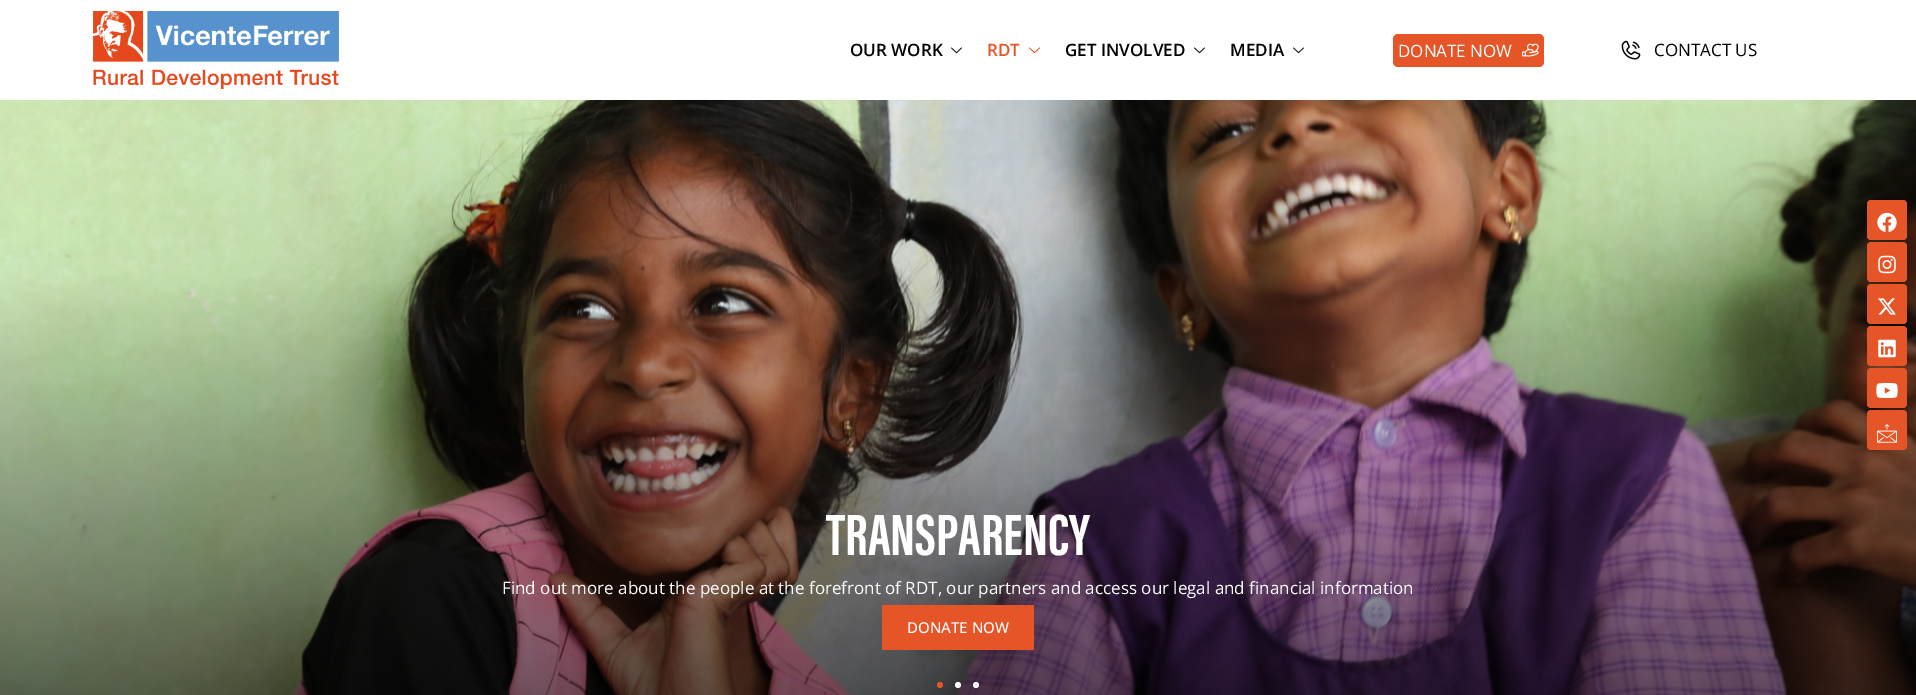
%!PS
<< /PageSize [1916 695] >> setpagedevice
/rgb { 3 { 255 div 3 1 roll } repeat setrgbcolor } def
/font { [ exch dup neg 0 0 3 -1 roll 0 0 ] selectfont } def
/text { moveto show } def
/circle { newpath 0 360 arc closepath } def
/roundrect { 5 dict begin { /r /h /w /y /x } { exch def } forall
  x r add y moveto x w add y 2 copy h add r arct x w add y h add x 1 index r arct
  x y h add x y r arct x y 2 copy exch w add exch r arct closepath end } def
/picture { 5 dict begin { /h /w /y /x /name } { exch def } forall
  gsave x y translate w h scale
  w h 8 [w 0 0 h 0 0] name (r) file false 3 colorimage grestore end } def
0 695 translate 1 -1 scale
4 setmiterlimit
255 255 255 rgb
0 0 1916 695 rectfill
(img_01.rgb) 93 11 246 78 picture
(img_02.rgb) 951 47 11 7 picture
(img_03.rgb) 1029 47 11 7 picture
(img_02.rgb) 1194 47 11 7 picture
(img_02.rgb) 1293 47 11 7 picture
229 85 39 rgb
1393 34 151 33 5 roundrect fill
(img_04.rgb) 1522 43 17 14 picture
(img_05.rgb) 1621 40 20 20 picture
(img_12.rgb) 0 100 1916 595 picture
1867 200 40 40 4 roundrect fill
(img_06.rgb) 1877 212 20 20 picture
1867 242 40 40 4 roundrect fill
(img_07.rgb) 1878 255 18 19 picture
1867 284 40 40 4 roundrect fill
(img_08.rgb) 1878 298 18 17 picture
1867 326 40 40 4 roundrect fill
(img_09.rgb) 1878 339 18 19 picture
1867 368 40 40 4 roundrect fill
(img_10.rgb) 1876 383 22 15 picture
1867 410 40 40 4 roundrect fill
(img_11.rgb) 1877 424 20 19 picture
882 605 152 45 rectfill
940 685 3 circle fill
255 255 255 rgb
958 685 3 circle fill
976 685 3 circle fill
/OpenSans-SemiBold 17 font
0 0 0 rgb
(OUR WORK) 850 56 text
229 85 39 rgb
(RDT) 987 56 text
0 0 0 rgb
(GET INVOLVED) 1065 56 text
(MEDIA) 1230 56 text
/OpenSans-Regular 17 font
255 255 255 rgb
(DONATE NOW) 1398 57 text
0 0 0 rgb
(CONTACT US) 1654 56 text
/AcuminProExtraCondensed-Bold 60 font
255 255 255 rgb
(TRANSPARENCY) 826 555 text
/OpenSans-Regular 17 font
(Find out more about the people at the forefront of RDT, our partners and access our legal and financial information) 502 594 text
/OpenSans-Medium 15 font
(DONATE NOW) 907 633 text
showpage
